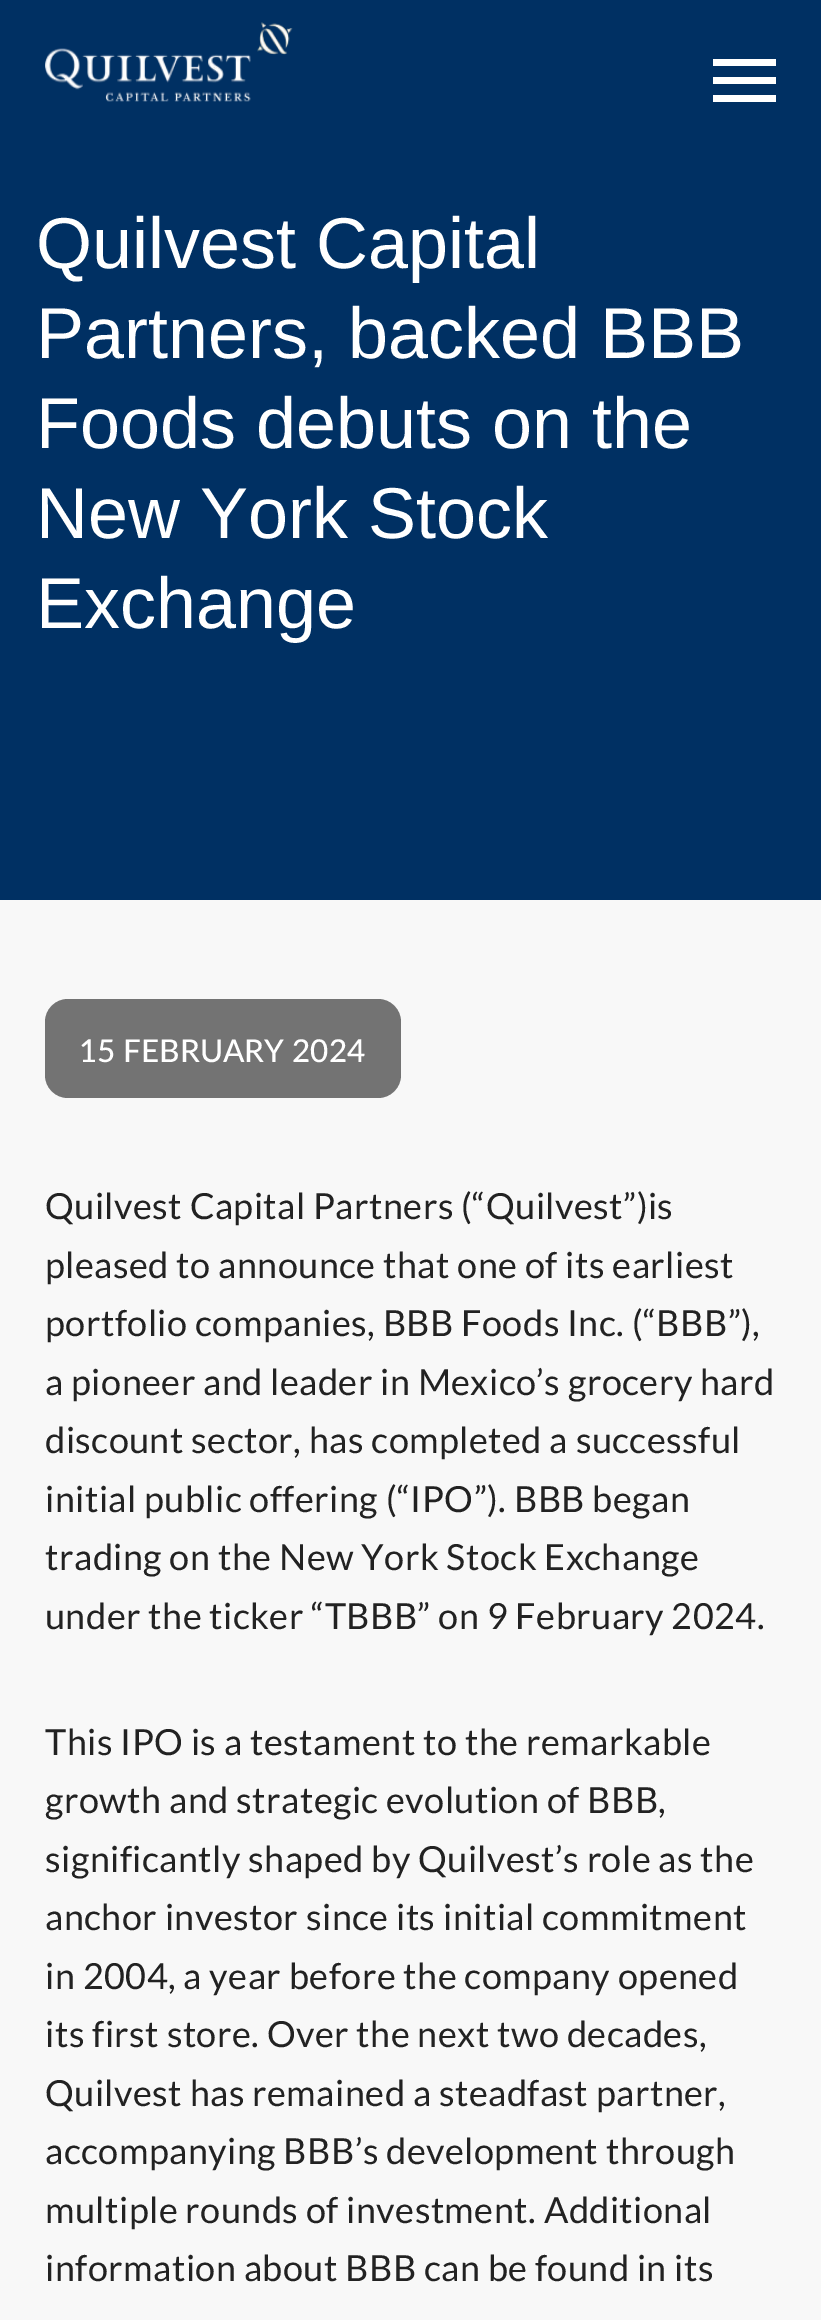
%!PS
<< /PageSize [821 2320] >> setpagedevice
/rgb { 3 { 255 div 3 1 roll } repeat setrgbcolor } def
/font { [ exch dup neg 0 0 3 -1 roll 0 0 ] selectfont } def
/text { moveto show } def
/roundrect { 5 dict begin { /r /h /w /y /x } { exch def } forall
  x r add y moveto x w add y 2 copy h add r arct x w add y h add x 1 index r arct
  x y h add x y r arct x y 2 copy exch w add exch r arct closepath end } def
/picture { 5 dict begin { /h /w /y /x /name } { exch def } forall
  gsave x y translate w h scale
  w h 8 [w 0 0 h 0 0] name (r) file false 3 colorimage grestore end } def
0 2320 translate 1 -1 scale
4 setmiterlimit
248 248 248 rgb
0 0 821 2320 rectfill
0 48 99 rgb
0 0 821 900 rectfill
(img_01.rgb) 45 22 248 79 picture
(img_02.rgb) 45 22 248 80 picture
255 255 255 rgb
713 59 63 7 rectfill
713 77 63 7 rectfill
713 95 63 7 rectfill
115 115 115 rgb
45 999 356 99 23 roundrect fill
/LiberationSans-Regular 72 font
255 255 255 rgb
(Quilvest Capital) 36 268 text
(Partners, backed BBB) 36 358 text
(Foods debuts on the) 36 448 text
(New York Stock) 36 538 text
(Exchange) 36 628 text
/Lato-Medium 31.5 font
(15 FEBRUARY 2024) 79 1062 text
/Lato-Regular 36 font
34 34 34 rgb
45 1219 moveto 0.45 0 (Quilvest Capital Partners \(“Quilvest”\)is) ashow
45 1278 moveto 0.45 0 (pleased to announce that one of its earliest) ashow
45 1336 moveto 0.45 0 (portfolio companies, BBB Foods Inc. \(“BBB”\),) ashow
45 1395 moveto 0.45 0 (a pioneer and leader in Mexico’s grocery hard) ashow
45 1453 moveto 0.45 0 (discount sector, has completed a successful) ashow
45 1512 moveto 0.45 0 (initial public offering \(“IPO”\). BBB began) ashow
45 1570 moveto 0.45 0 (trading on the New York Stock Exchange) ashow
45 1629 moveto 0.45 0 (under the ticker “TBBB” on 9 February 2024.) ashow
45 1755 moveto 0.45 0 (This IPO is a testament to the remarkable) ashow
45 1813 moveto 0.45 0 (growth and strategic evolution of BBB,) ashow
45 1872 moveto 0.45 0 (significantly shaped by Quilvest’s role as the) ashow
45 1930 moveto 0.45 0 (anchor investor since its initial commitment) ashow
45 1989 moveto 0.45 0 (in 2004, a year before the company opened) ashow
45 2047 moveto 0.45 0 (its first store. Over the next two decades,) ashow
45 2106 moveto 0.45 0 (Quilvest has remained a steadfast partner,) ashow
45 2164 moveto 0.45 0 (accompanying BBB’s development through) ashow
45 2223 moveto 0.45 0 (multiple rounds of investment. Additional) ashow
45 2281 moveto 0.45 0 (information about BBB can be found in its) ashow
showpage
